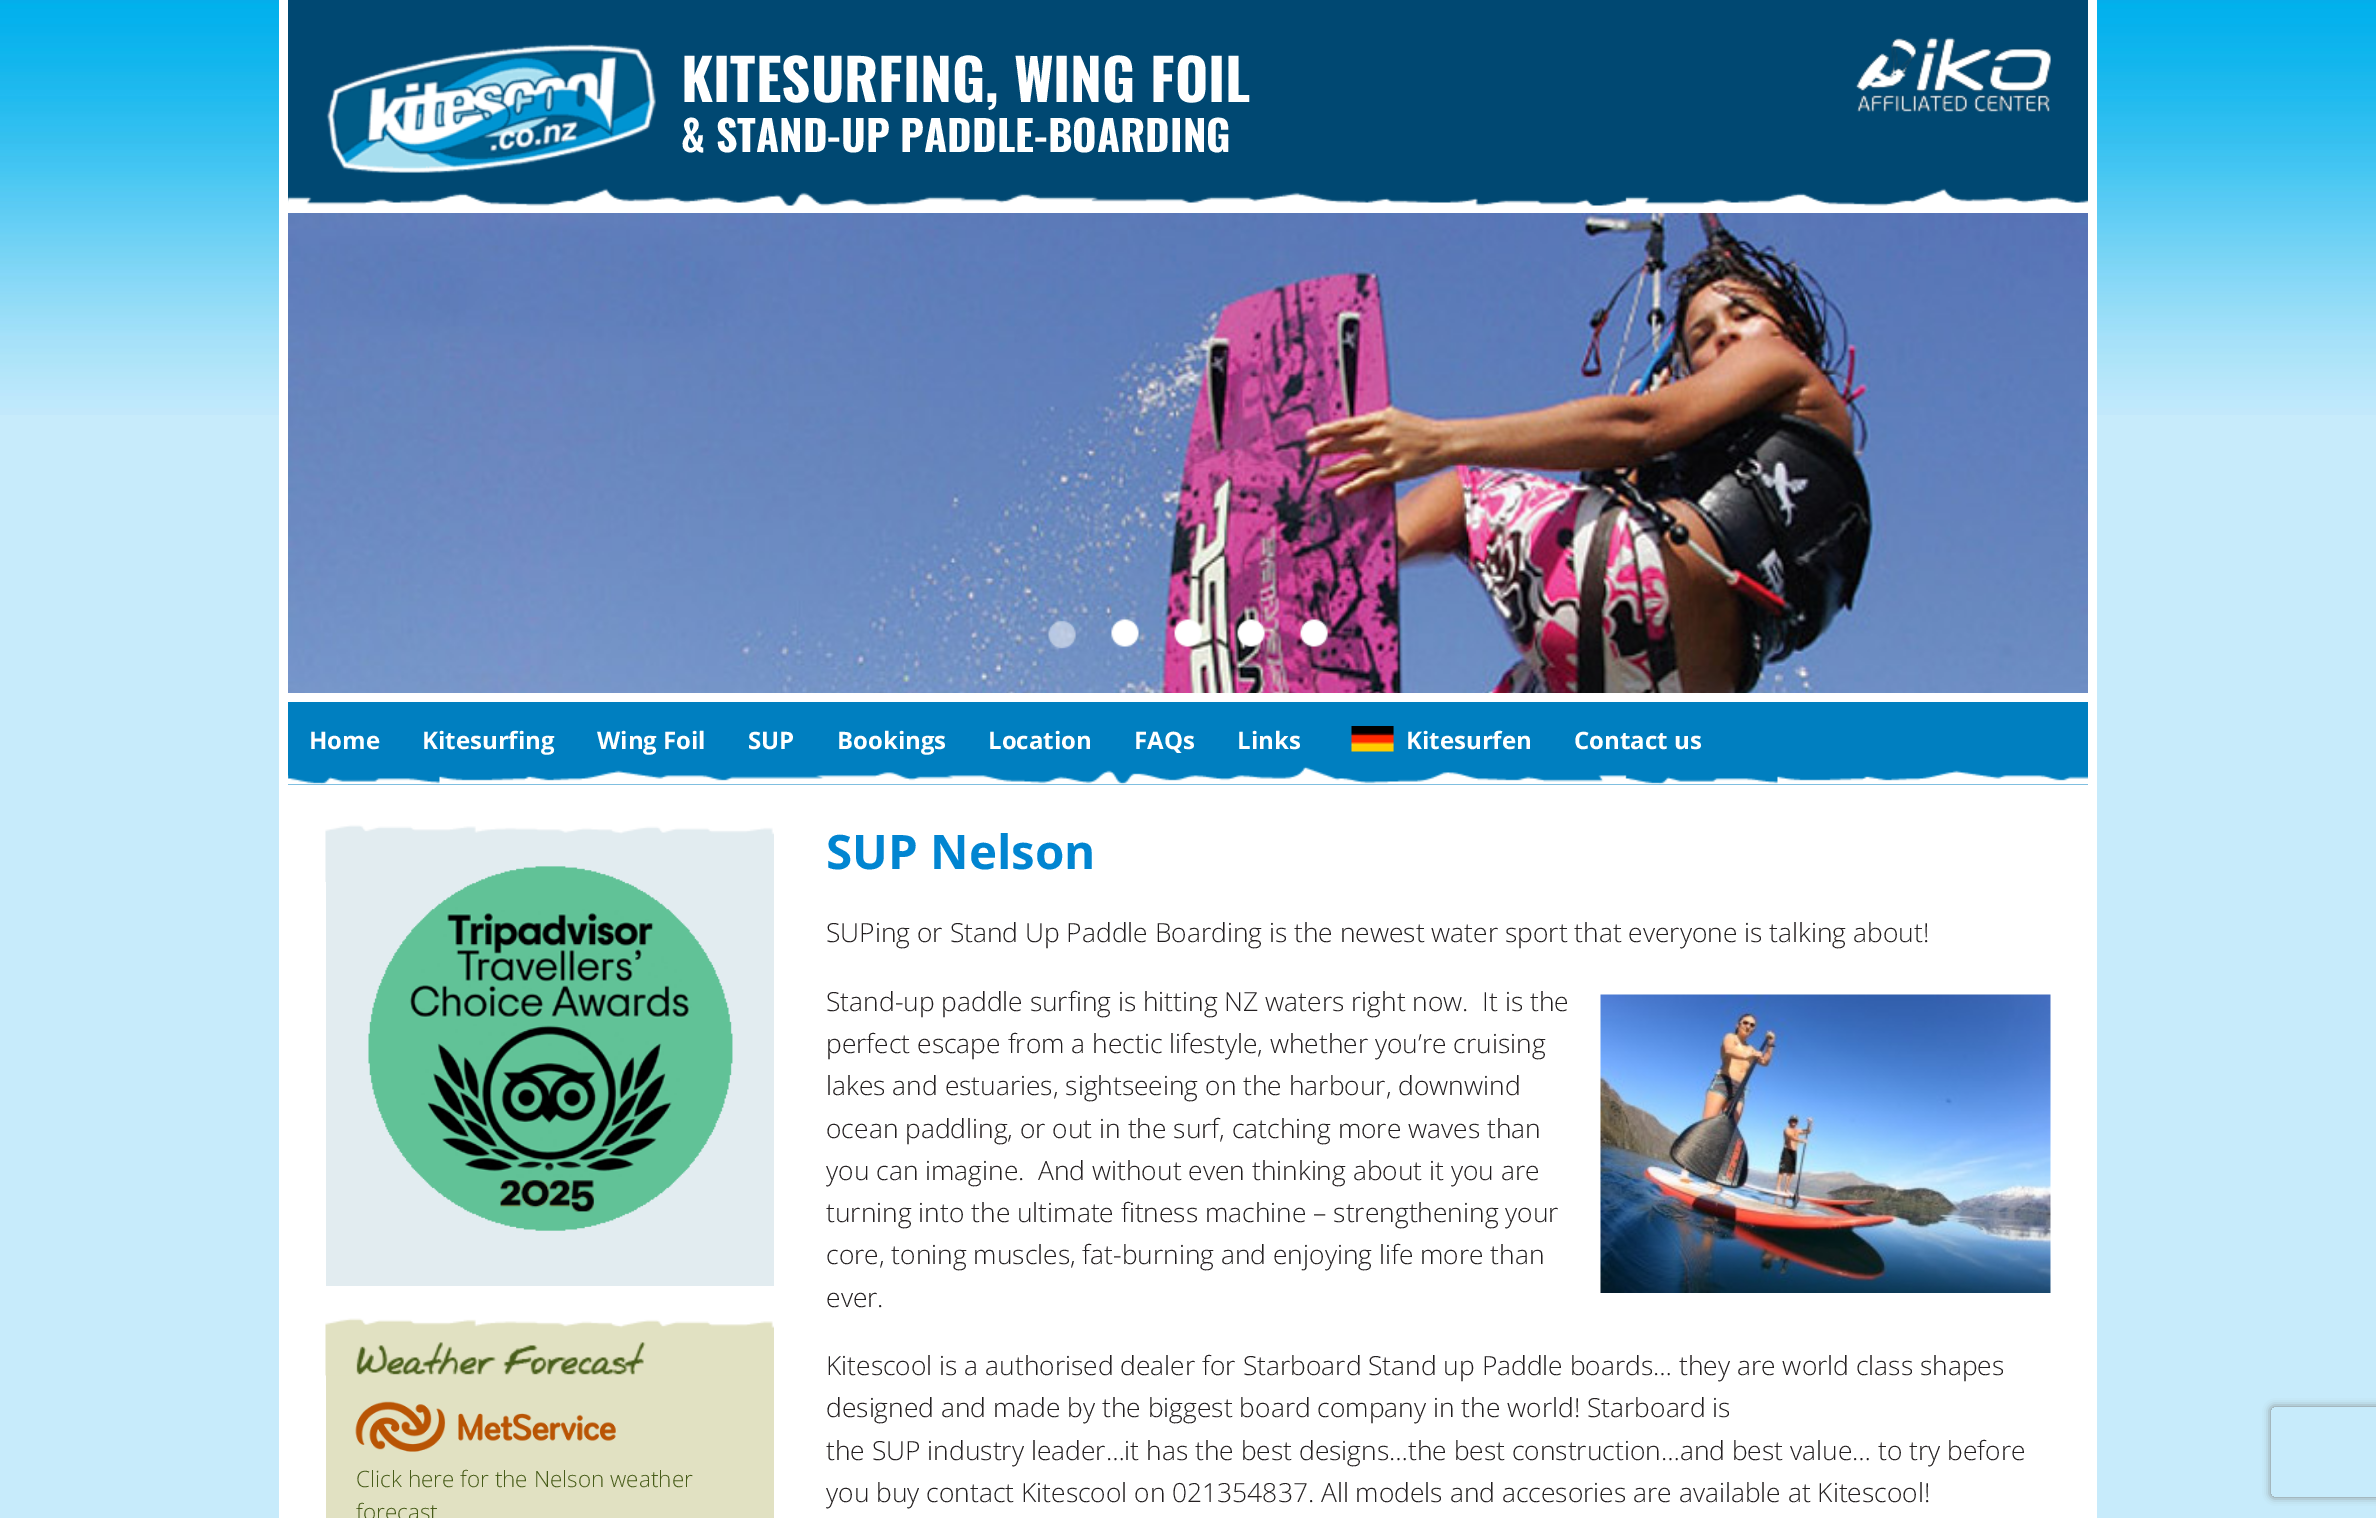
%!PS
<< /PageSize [2376 1518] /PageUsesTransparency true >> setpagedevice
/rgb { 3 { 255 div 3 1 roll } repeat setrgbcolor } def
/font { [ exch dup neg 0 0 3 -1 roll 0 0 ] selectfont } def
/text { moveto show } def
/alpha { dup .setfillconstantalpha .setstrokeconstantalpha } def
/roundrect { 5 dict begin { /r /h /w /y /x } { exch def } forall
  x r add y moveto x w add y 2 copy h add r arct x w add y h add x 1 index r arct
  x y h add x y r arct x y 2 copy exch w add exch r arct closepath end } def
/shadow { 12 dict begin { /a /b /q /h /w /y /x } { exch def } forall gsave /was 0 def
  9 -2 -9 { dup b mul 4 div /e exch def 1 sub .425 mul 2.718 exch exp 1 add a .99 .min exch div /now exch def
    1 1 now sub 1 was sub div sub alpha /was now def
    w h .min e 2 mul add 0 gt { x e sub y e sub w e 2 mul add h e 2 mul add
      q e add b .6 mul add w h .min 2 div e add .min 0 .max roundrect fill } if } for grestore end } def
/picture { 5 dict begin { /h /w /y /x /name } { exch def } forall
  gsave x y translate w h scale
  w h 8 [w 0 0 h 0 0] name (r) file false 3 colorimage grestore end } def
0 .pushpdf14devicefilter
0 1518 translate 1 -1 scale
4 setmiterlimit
199 235 251 rgb
0 0 2376 1518 rectfill
(img_01.rgb) 0 0 2376 415 picture
255 255 255 rgb
279 0 1818 1518 rectfill
0 72 114 rgb
288 0 1800 188 rectfill
(img_02.rgb) 288 188 1800 25 picture
(img_03.rgb) 326 44 330 129 picture
(img_04.rgb) 1855 37 196 76 picture
(img_05.rgb) 288 213 1800 480 picture
(img_06.rgb) 1048 620 28 29 picture
(img_07.rgb) 1111 619 28 28 picture
(img_08.rgb) 1174 619 28 28 picture
(img_09.rgb) 1237 619 28 28 picture
(img_10.rgb) 1300 619 28 28 picture
0 127 192 rgb
288 702 1800 83 rectfill
(img_11.rgb) 288 766 1800 19 picture
(img_12.rgb) 1351 726 43 26 picture
226 236 240 rgb
326 882 448 404 rectfill
(img_13.rgb) 325 822 449 60 picture
(img_14.rgb) 368 866 365 365 picture
225 225 194 rgb
326 1375 448 143 rectfill
(img_15.rgb) 325 1316 449 60 picture
(img_16.rgb) 356 1342 290 33 picture
(img_17.rgb) 355 1401 261 51 picture
(img_18.rgb) 1600 994 451 299 picture
gsave
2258 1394 moveto 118 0 rlineto 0 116 rlineto -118 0 rlineto closepath 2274 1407 moveto 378 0 rlineto 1.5 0 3 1.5 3 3 rcurveto 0 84 rlineto 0 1.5 -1.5 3 -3 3 rcurveto -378 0 rlineto -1.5 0 -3 -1.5 -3 -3 rcurveto 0 -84 rlineto 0 -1.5 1.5 -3 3 -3 rcurveto closepath eoclip newpath
128 128 128 rgb
2271 1407 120 90 3 4 1 shadow
grestore
/Oswald-Bold 57 font
255 255 255 rgb
(KITESURFING, WING FOIL) 681 102 text
/Oswald-Bold 42 font
(& STAND-UP PADDLE-BOARDING) 681 152 text
/OpenSans-Bold 24 font
(Home) 309 749 text
(Kitesurfing) 422 749 text
(Wing Foil) 597 749 text
(SUP) 748 749 text
(Bookings) 837 749 text
(Location) 988 749 text
(FAQs) 1134 749 text
(Links) 1237 749 text
(Kitesurfen) 1406 749 text
(Contact us) 1574 749 text
/OpenSans-Light 22.5 font
71 92 25 rgb
(Click here for the Nelson weather) 356 1487 text
(forecast) 356 1520 text
/OpenSans-Bold 47.5 font
1 133 209 rgb
(SUP Nelson) 826 869 text
/OpenSans-Light 26.4 font
35 31 32 rgb
(SUPing or Stand Up Paddle Boarding is the newest water sport that everyone is talking about!) 826 942 text
(Stand-up paddle surfing is hitting NZ waters right now.  It is the) 826 1011 text
(perfect escape from a hectic lifestyle, whether you’re cruising) 826 1053 text
(lakes and estuaries, sightseeing on the harbour, downwind) 826 1095 text
(ocean paddling, or out in the surf, catching more waves than) 826 1138 text
(you can imagine.  And without even thinking about it you are) 826 1180 text
(turning into the ultimate fitness machine – strengthening your) 826 1222 text
(core, toning muscles, fat-burning and enjoying life more than) 826 1264 text
(ever.) 826 1307 text
(Kitescool is a authorised dealer for Starboard Stand up Paddle boards… they are world class shapes) 826 1375 text
(designed and made by the biggest board company in the world! Starboard is) 826 1417 text
(the SUP industry leader…it has the best designs…the best construction…and best value… to try before) 826 1460 text
(you buy contact Kitescool on 021354837. All models and accesories are available at Kitescool!) 826 1502 text
.poppdf14devicefilter showpage
